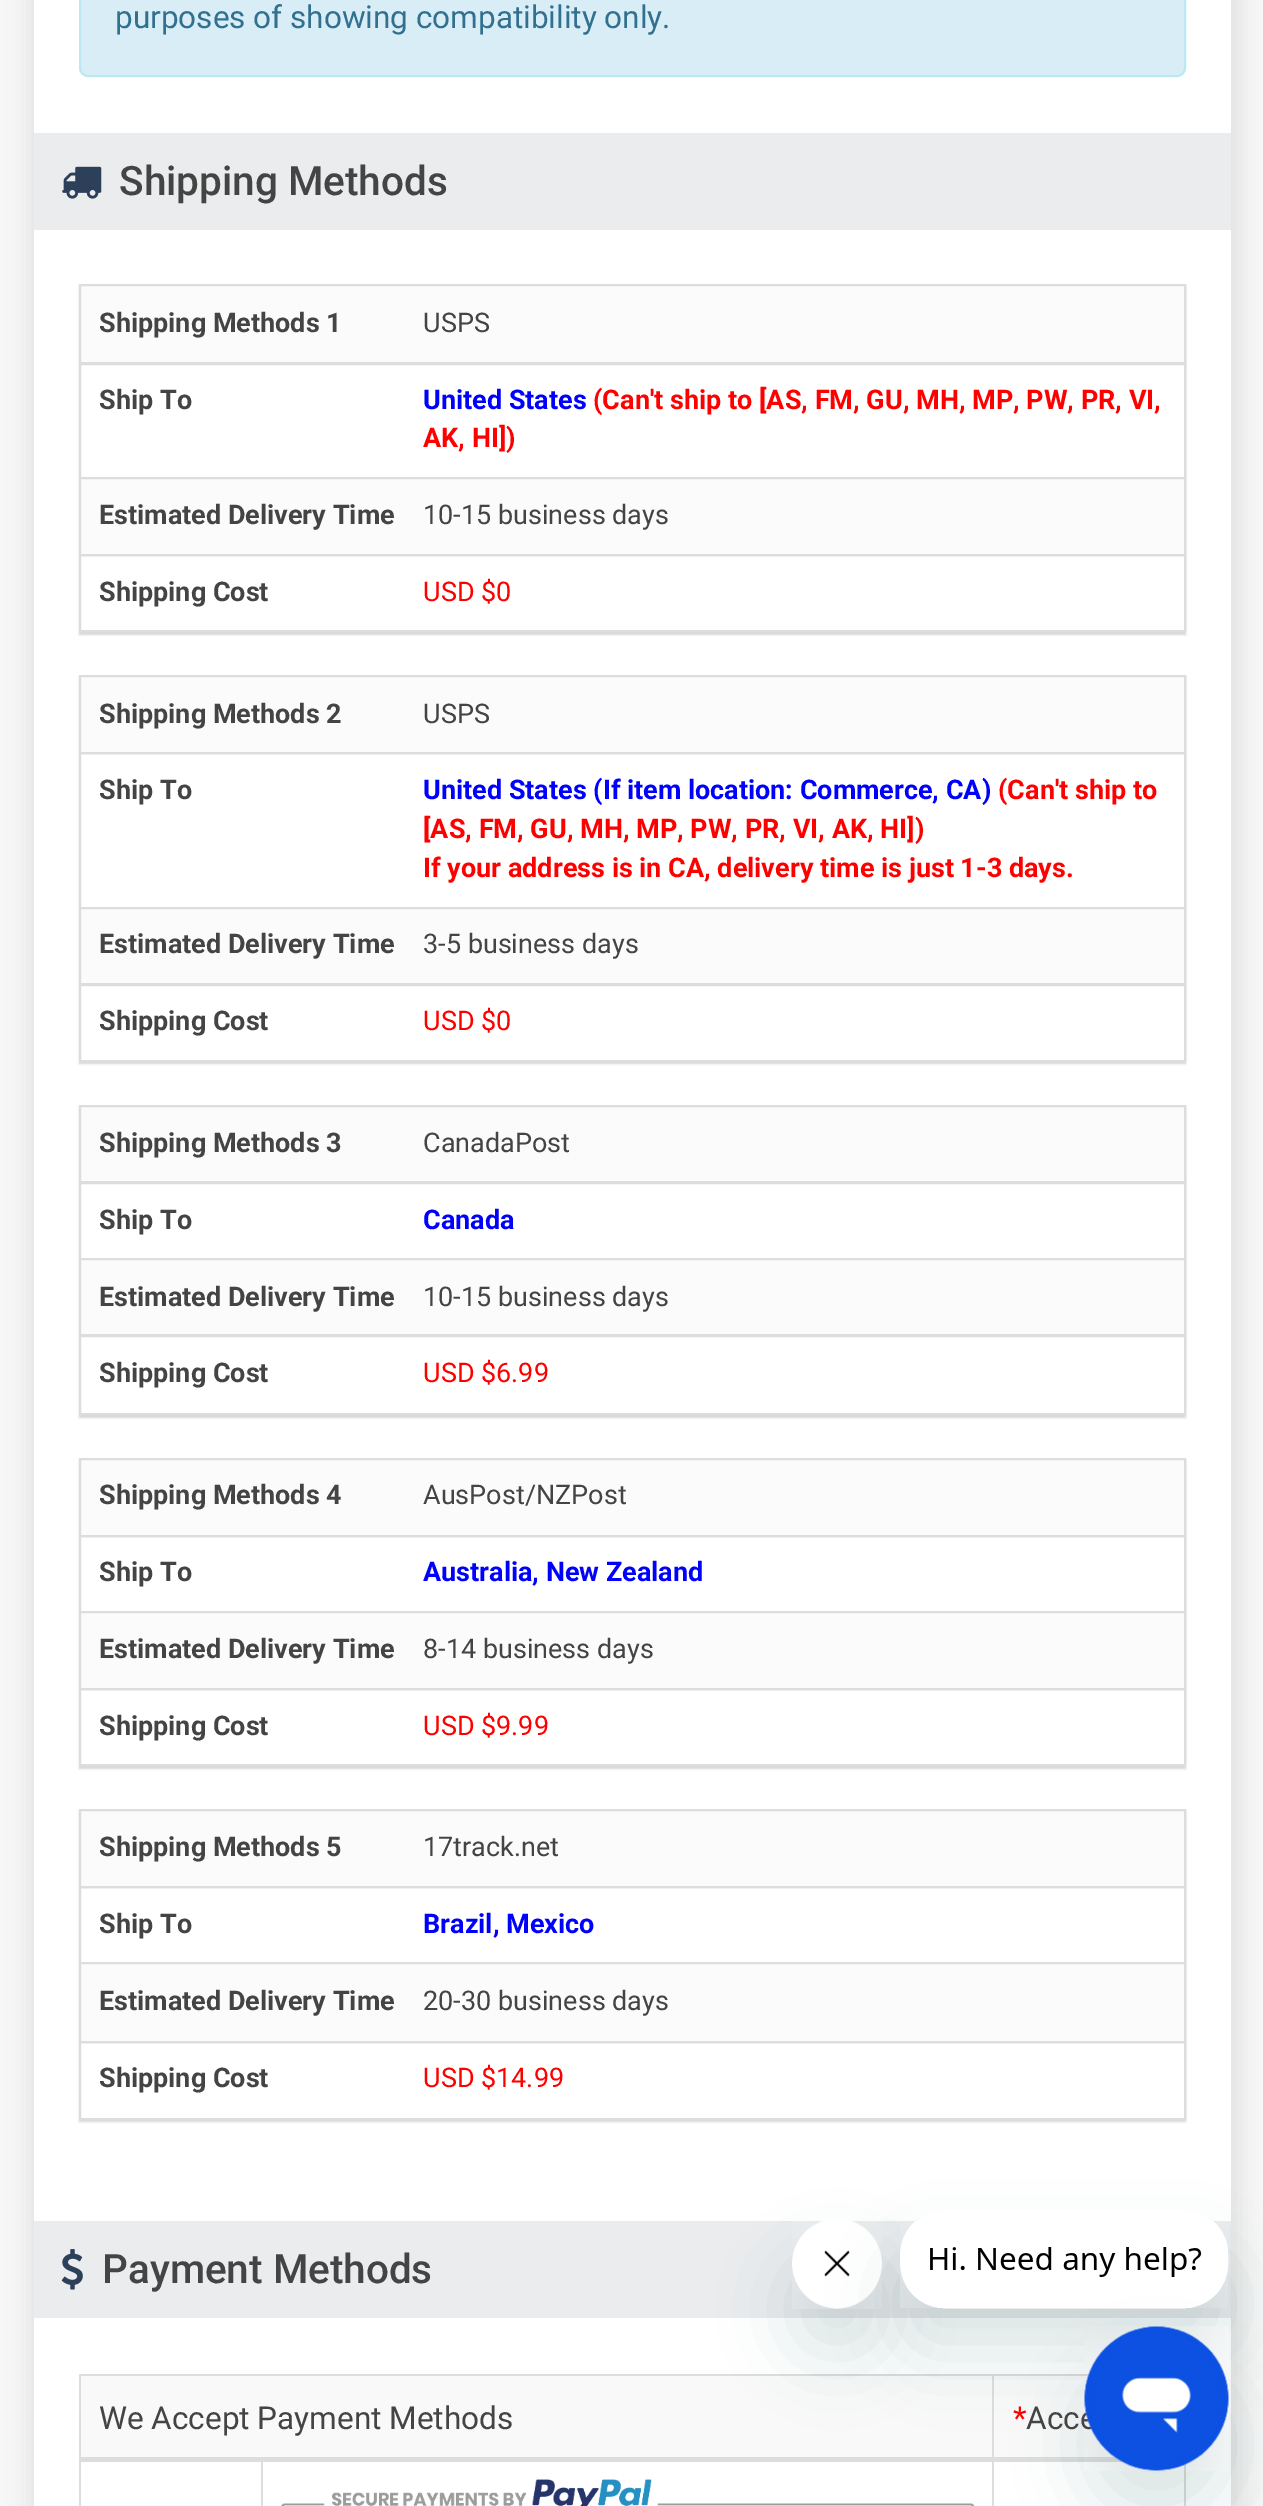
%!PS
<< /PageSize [1263 2506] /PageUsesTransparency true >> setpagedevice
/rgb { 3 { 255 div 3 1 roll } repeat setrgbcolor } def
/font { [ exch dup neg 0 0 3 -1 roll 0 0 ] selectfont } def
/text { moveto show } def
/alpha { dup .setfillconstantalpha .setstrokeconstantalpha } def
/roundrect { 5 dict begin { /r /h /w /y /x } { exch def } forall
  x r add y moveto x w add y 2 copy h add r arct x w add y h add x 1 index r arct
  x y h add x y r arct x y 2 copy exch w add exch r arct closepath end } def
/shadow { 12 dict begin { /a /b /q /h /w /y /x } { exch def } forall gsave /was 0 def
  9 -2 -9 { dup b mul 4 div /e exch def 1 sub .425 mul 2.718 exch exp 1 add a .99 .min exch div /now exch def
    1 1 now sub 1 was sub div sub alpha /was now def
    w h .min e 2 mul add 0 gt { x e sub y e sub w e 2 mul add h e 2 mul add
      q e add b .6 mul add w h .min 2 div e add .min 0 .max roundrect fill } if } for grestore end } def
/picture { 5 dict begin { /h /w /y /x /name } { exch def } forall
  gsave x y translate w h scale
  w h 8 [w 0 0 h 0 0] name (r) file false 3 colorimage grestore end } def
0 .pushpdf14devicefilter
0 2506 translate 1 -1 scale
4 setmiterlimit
247 247 247 rgb
0 0 1263 2506 rectfill
0 0 0 rgb
29 -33 1211 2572 0 11 0.08 shadow
255 255 255 rgb
34 0 1197 2506 rectfill
217 237 247 rgb
80 -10 1105 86 8 roundrect gsave fill grestore
188 232 241 rgb
2 setlinewidth
stroke
234 236 238 rgb
34 133 1197 97 rectfill
(img_01.rgb) 62 166 40 33 picture
gsave
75 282 moveto 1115 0 rlineto 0 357 rlineto -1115 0 rlineto closepath 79 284 moveto 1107 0 rlineto 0 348 rlineto -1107 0 rlineto closepath eoclip newpath
0 0 0 rgb
79 286 1107 349 0 1 0.15 shadow
grestore
251 251 251 rgb
81 286 1103 76 rectfill
221 221 221 rgb
80 285 1105 79 rectstroke
80 363 1105 115 rectstroke
251 251 251 rgb
80 478 moveto 1105 0 rlineto 0 77 rlineto -1105 0 rlineto closepath gsave fill grestore
221 221 221 rgb
stroke
80 555 1105 76 rectstroke
gsave
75 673 moveto 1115 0 rlineto 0 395 rlineto -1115 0 rlineto closepath 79 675 moveto 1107 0 rlineto 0 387 rlineto -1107 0 rlineto closepath eoclip newpath
0 0 0 rgb
79 677 1107 387 0 1 0.15 shadow
grestore
251 251 251 rgb
80 676 moveto 1105 0 rlineto 0 77 rlineto -1105 0 rlineto closepath gsave fill grestore
221 221 221 rgb
stroke
80 753 1105 155 rectstroke
251 251 251 rgb
81 909 1103 74 rectfill
221 221 221 rgb
80 908 1105 77 rectstroke
80 984 1105 77 rectstroke
gsave
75 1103 moveto 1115 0 rlineto 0 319 rlineto -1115 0 rlineto closepath 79 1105 moveto 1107 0 rlineto 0 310 rlineto -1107 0 rlineto closepath eoclip newpath
0 0 0 rgb
79 1107 1107 311 0 1 0.15 shadow
grestore
251 251 251 rgb
81 1107 1103 74 rectfill
221 221 221 rgb
80 1106 1105 77 rectstroke
80 1182 1105 77 rectstroke
251 251 251 rgb
81 1260 1103 74 rectfill
221 221 221 rgb
80 1259 1105 77 rectstroke
80 1335 1105 79 rectstroke
gsave
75 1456 moveto 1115 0 rlineto 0 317 rlineto -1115 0 rlineto closepath 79 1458 moveto 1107 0 rlineto 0 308 rlineto -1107 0 rlineto closepath eoclip newpath
0 0 0 rgb
79 1460 1107 309 0 1 0.15 shadow
grestore
251 251 251 rgb
80 1459 moveto 1105 0 rlineto 0 77 rlineto -1105 0 rlineto closepath gsave fill grestore
221 221 221 rgb
stroke
80 1536 1105 76 rectstroke
251 251 251 rgb
80 1612 moveto 1105 0 rlineto 0 77 rlineto -1105 0 rlineto closepath gsave fill grestore
221 221 221 rgb
stroke
80 1689 1105 76 rectstroke
gsave
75 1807 moveto 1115 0 rlineto 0 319 rlineto -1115 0 rlineto closepath 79 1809 moveto 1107 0 rlineto 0 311 rlineto -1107 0 rlineto closepath eoclip newpath
0 0 0 rgb
79 1811 1107 311 0 1 0.15 shadow
grestore
251 251 251 rgb
80 1810 moveto 1105 0 rlineto 0 77 rlineto -1105 0 rlineto closepath gsave fill grestore
221 221 221 rgb
stroke
80 1887 1105 76 rectstroke
251 251 251 rgb
80 1963 moveto 1105 0 rlineto 0 79 rlineto -1105 0 rlineto closepath gsave fill grestore
221 221 221 rgb
stroke
80 2042 1105 77 rectstroke
234 236 238 rgb
34 2221 1197 97 rectfill
(img_02.rgb) 61 2249 22 41 picture
221 221 221 rgb
79 2374 1011 2 rectfill
1184 2463 2 43 rectfill
79 2374 2 132 rectfill
261 2459 2 47 rectfill
(img_03.rgb) 281 2479 694 27 picture
249 249 249 rgb
81 2376 1035 81 rectfill
221 221 221 rgb
992 2374 2 132 rectfill
79 2457 1045 5 rectfill
23 73 77 rgb
792 2264 90 90 45 34 0.15 shadow
(img_05.rgb) 792 2221 90 88 picture
gsave
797 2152 moveto 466 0 rlineto 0 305 rlineto -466 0 rlineto closepath 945 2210 moveto 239 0 rlineto 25 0 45 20 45 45 rcurveto 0 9 rlineto 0 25 -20 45 -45 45 rcurveto -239 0 rlineto -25 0 -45 -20 -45 -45 rcurveto 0 -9 rlineto 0 -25 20 -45 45 -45 rcurveto closepath eoclip newpath
900 2255 329 99 45 34 0.15 shadow
grestore
(img_04.rgb) 900 2221 328 87 picture
1085 2372 144 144 72 34 0.15 shadow
/Roboto-Regular 31.5 font
49 112 143 rgb
(purposes of showing compatibility only.) 115 28 text
/Roboto-Medium 40.5 font
68 68 68 rgb
(Shipping Methods) 119 195 text
/Roboto-Bold 27 font
(Shipping Methods 1) 99 332 text
/Roboto-Regular 27 font
(USPS) 423 332 text
/Roboto-Bold 27 font
(Ship To) 99 409 text
0 0 255 rgb
(United States) 423 409 text
255 0 0 rgb
(\(Can't ship to [AS, FM, GU, MH, MP, PW, PR, VI,) 593 409 text
(AK, HI]\)) 423 447 text
68 68 68 rgb
(Estimated Delivery Time) 99 524 text
/Roboto-Regular 27 font
(10-15 business days) 423 524 text
/Roboto-Bold 27 font
(Shipping Cost) 99 601 text
/Roboto-Regular 27 font
255 0 0 rgb
(USD $0) 423 601 text
/Roboto-Bold 27 font
68 68 68 rgb
(Shipping Methods 2) 99 723 text
/Roboto-Regular 27 font
(USPS) 423 723 text
/Roboto-Bold 27 font
(Ship To) 99 799 text
0 0 255 rgb
(United States \(If item location: Commerce, CA\)) 423 799 text
255 0 0 rgb
(\(Can't ship to) 998 799 text
([AS, FM, GU, MH, MP, PW, PR, VI, AK, HI]\)) 423 838 text
(If your address is in CA, delivery time is just 1-3 days.) 423 877 text
68 68 68 rgb
(Estimated Delivery Time) 99 953 text
/Roboto-Regular 27 font
(3-5 business days) 423 953 text
/Roboto-Bold 27 font
(Shipping Cost) 99 1030 text
/Roboto-Regular 27 font
255 0 0 rgb
(USD $0) 423 1030 text
/Roboto-Bold 27 font
68 68 68 rgb
(Shipping Methods 3) 99 1152 text
/Roboto-Regular 27 font
(CanadaPost) 423 1152 text
/Roboto-Bold 27 font
(Ship To) 99 1229 text
0 0 255 rgb
(Canada) 423 1229 text
68 68 68 rgb
(Estimated Delivery Time) 99 1306 text
/Roboto-Regular 27 font
(10-15 business days) 423 1306 text
/Roboto-Bold 27 font
(Shipping Cost) 99 1382 text
/Roboto-Regular 27 font
255 0 0 rgb
(USD $6.99) 423 1382 text
/Roboto-Bold 27 font
68 68 68 rgb
(Shipping Methods 4) 99 1504 text
/Roboto-Regular 27 font
(AusPost/NZPost) 423 1504 text
/Roboto-Bold 27 font
(Ship To) 99 1581 text
0 0 255 rgb
(Australia, New Zealand) 423 1581 text
68 68 68 rgb
(Estimated Delivery Time) 99 1658 text
/Roboto-Regular 27 font
(8-14 business days) 423 1658 text
/Roboto-Bold 27 font
(Shipping Cost) 99 1735 text
/Roboto-Regular 27 font
255 0 0 rgb
(USD $9.99) 423 1735 text
/Roboto-Bold 27 font
68 68 68 rgb
(Shipping Methods 5) 99 1856 text
/Roboto-Regular 27 font
(17track.net) 423 1856 text
/Roboto-Bold 27 font
(Ship To) 99 1933 text
0 0 255 rgb
(Brazil, Mexico) 423 1933 text
68 68 68 rgb
(Estimated Delivery Time) 99 2010 text
/Roboto-Regular 27 font
(20-30 business days) 423 2010 text
/Roboto-Bold 27 font
(Shipping Cost) 99 2087 text
/Roboto-Regular 27 font
255 0 0 rgb
(USD $14.99) 423 2087 text
/Roboto-Medium 40.5 font
68 68 68 rgb
(Payment Methods) 102 2283 text
/Roboto-Regular 31.5 font
(We Accept Payment Methods) 99 2429 text
255 0 0 rgb
(*) 1013 2429 text
68 68 68 rgb
(Acce) 1026 2429 text
(img_06.rgb) 1084 2326 145 145 picture
.poppdf14devicefilter showpage
